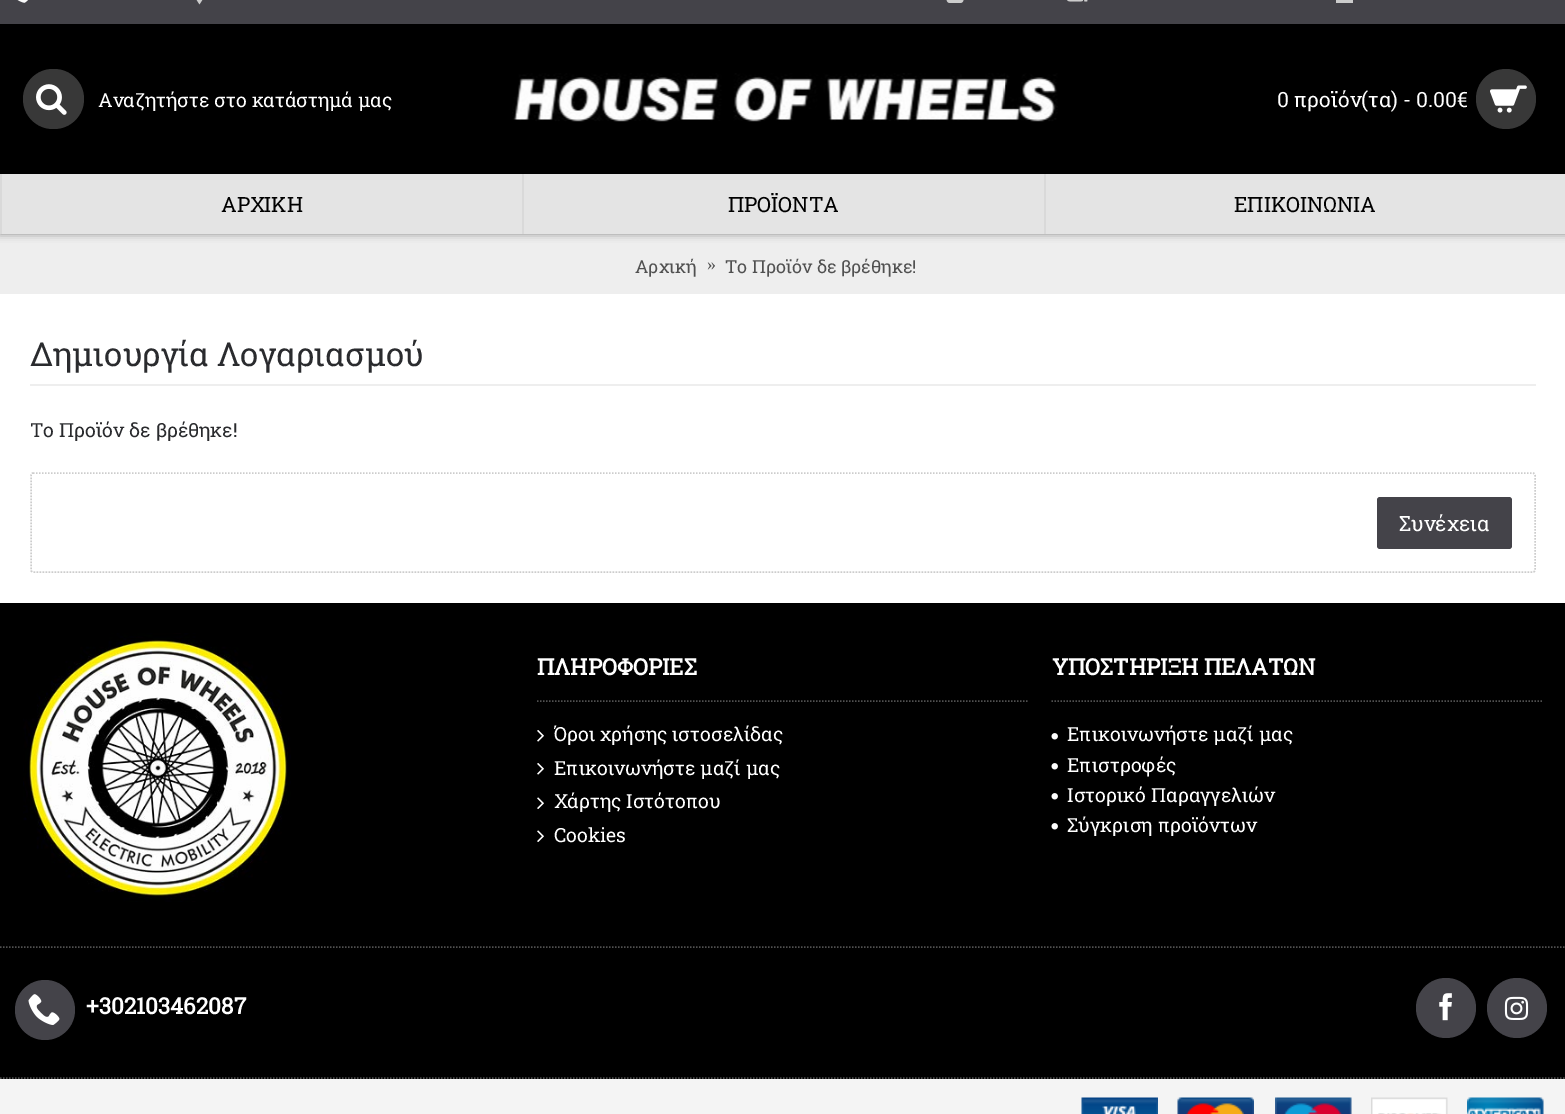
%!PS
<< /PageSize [1565 1114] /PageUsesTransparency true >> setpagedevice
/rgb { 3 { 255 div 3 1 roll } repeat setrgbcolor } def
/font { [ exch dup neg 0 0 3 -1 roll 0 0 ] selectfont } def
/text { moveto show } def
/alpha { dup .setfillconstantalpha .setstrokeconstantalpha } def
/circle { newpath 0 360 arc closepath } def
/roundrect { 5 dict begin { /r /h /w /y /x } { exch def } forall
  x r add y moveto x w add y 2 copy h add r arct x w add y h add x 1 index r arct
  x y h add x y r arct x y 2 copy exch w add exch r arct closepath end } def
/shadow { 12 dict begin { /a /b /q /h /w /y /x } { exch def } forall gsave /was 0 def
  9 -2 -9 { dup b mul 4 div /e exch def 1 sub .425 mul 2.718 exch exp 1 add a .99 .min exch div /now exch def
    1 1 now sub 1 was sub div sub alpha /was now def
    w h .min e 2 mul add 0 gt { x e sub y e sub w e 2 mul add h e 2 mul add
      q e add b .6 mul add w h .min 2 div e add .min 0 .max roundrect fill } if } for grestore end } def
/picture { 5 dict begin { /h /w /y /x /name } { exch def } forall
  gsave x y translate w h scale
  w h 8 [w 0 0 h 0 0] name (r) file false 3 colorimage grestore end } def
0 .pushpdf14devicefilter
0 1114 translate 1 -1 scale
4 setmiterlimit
255 255 255 rgb
0 0 1565 1114 rectfill
238 238 238 rgb
0 234 1565 60 rectfill
0 0 0 rgb
0 -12 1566 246 0 4 0.4 shadow
0 24 1565 150 rectfill
68 67 73 rgb
0 0 1565 24 rectfill
(img_01.rgb) 17 0 11 3 picture
(img_02.rgb) 196 0 7 5 picture
(img_03.rgb) 946 0 18 3 picture
(img_04.rgb) 1067 0 21 2 picture
204 204 204 rgb
1336 0 17 3 rectfill
56 56 56 rgb
23 69 61 60 30 roundrect fill
(img_05.rgb) 36 84 31 31 picture
(img_06.rgb) 512 73 546 49 picture
1506 99 30 circle fill
(img_07.rgb) 1490 85 37 28 picture
217 217 217 rgb
0 174 2 60 rectfill
228 228 228 rgb
2 174 1563 60 rectfill
217 217 217 rgb
522 174 2 60 rectfill
1044 174 2 60 rectfill
238 238 238 rgb
30 384 1506 2 rectfill
204 204 204 rgb
1.5 setlinewidth
[1.5 1.5] 0 setdash
33 473 moveto 1500 0 rlineto 1 0 2 1.5 2 2.5 rcurveto 0 94.5 rlineto 0 1 -1 2 -2 2 rcurveto -1500 0 rlineto -1 0 -2 -1 -2 -2 rcurveto 0 -94.5 rlineto 0 -1 1 -2.5 2 -2.5 rcurveto closepath stroke
68 67 73 rgb
1377 497 135 52 3 roundrect fill
0 0 0 rgb
0 603 1565 476 rectfill
(img_08.rgb) 23 633 268 269 picture
80 80 80 rgb
537 701 moveto 492 0 rlineto stroke
(img_09.rgb) 537 730 7 12 picture
(img_09.rgb) 537 763 7 12 picture
(img_10.rgb) 537 797 7 12 picture
(img_10.rgb) 537 830 7 12 picture
1051.5 701 moveto 492 0 rlineto stroke
(img_11.rgb) 1051 733 7 7 picture
(img_11.rgb) 1051 763 7 7 picture
(img_11.rgb) 1051 793 7 7 picture
(img_11.rgb) 1051 823 7 7 picture
0 947 moveto 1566 0 rlineto stroke
0 1078 moveto 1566 0 rlineto stroke
68 67 73 rgb
45 1010 30 circle fill
(img_12.rgb) 28 994 32 31 picture
1446 1008 30 circle fill
(img_13.rgb) 1439 993 13 28 picture
1517 1008 30 circle fill
(img_14.rgb) 1504 996 25 24 picture
244 244 244 rgb
0 1079 1565 35 rectfill
(img_15.rgb) 1081 1097 77 17 picture
(img_16.rgb) 1177 1097 77 17 picture
(img_17.rgb) 1275 1097 77 17 picture
(img_18.rgb) 1371 1097 77 17 picture
(img_19.rgb) 1467 1097 77 17 picture
/RobotoSlab-Regular 19.5 font
255 255 255 rgb
(Αναζητήστε στο κατάστημά μας) 98 107 text
/RobotoSlab-Regular 21 font
(0 προϊόν\(τα\) - 0.00€) 1277 107 text
0 0 0 rgb
(ΑΡΧΙΚΗ) 221 212 text
(ΠΡΟΪΟΝΤΑ) 728 212 text
(ΕΠΙΚΟΙΝΩΝΙΑ) 1234 212 text
/RobotoSlab-Regular 18 font
80 80 80 rgb
(Αρχική) 635 273 text
/LiberationSerif-Regular 18 font
(») 707 270 text
/RobotoSlab-Regular 18 font
(Το Προϊόν δε βρέθηκε!) 725 273 text
/RobotoSlab-Regular 33 font
42 43 46 rgb
(Δημιουργία Λογαριασμού) 30 366 text
/RobotoSlab-Regular 19.5 font
(Το Προϊόν δε βρέθηκε!) 30 437 text
/RobotoSlab-Regular 21 font
255 255 255 rgb
(Συνέχεια) 1399 531 text
/RobotoSlab-Bold 22.5 font
(ΠΛΗΡΟΦΟΡΙΕΣ) 537 675 text
/RobotoSlab-Regular 19.5 font
(Όροι χρήσης ιστοσελίδας) 554 741 text
(Επικοινωνήστε μαζί μας) 554 775 text
(Χάρτης Ιστότοπου) 554 808 text
(Cookies) 554 842 text
/RobotoSlab-Bold 22.5 font
(ΥΠΟΣΤΗΡΙΞΗ ΠΕΛΑΤΩΝ) 1052 675 text
/RobotoSlab-Regular 19.5 font
(Επικοινωνήστε μαζί μας) 1067 741 text
(Επιστροφές) 1067 772 text
(Ιστορικό Παραγγελιών) 1067 802 text
(Σύγκριση προϊόντων) 1067 832 text
/RobotoSlab-Bold 22.5 font
(+302103462087) 86 1014 text
.poppdf14devicefilter showpage
